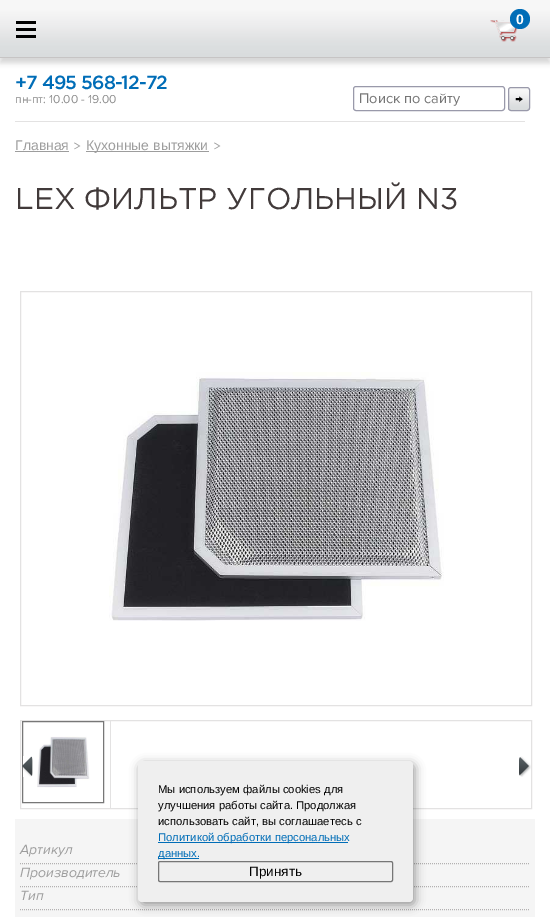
%!PS
<< /PageSize [550 917] /PageUsesTransparency true >> setpagedevice
/rgb { 3 { 255 div 3 1 roll } repeat setrgbcolor } def
/font { [ exch dup neg 0 0 3 -1 roll 0 0 ] selectfont } def
/text { moveto show } def
/alpha { dup .setfillconstantalpha .setstrokeconstantalpha } def
/circle { newpath 0 360 arc closepath } def
/roundrect { 5 dict begin { /r /h /w /y /x } { exch def } forall
  x r add y moveto x w add y 2 copy h add r arct x w add y h add x 1 index r arct
  x y h add x y r arct x y 2 copy exch w add exch r arct closepath end } def
/shadow { 12 dict begin { /a /b /q /h /w /y /x } { exch def } forall gsave /was 0 def
  9 -2 -9 { dup b mul 4 div /e exch def 1 sub .425 mul 2.718 exch exp 1 add a .99 .min exch div /now exch def
    1 1 now sub 1 was sub div sub alpha /was now def
    w h .min e 2 mul add 0 gt { x e sub y e sub w e 2 mul add h e 2 mul add
      q e add b .6 mul add w h .min 2 div e add .min 0 .max roundrect fill } if } for grestore end } def
/picture { 5 dict begin { /h /w /y /x /name } { exch def } forall
  gsave x y translate w h scale
  w h 8 [w 0 0 h 0 0] name (r) file false 3 colorimage grestore end } def
0 .pushpdf14devicefilter
0 917 translate 1 -1 scale
4 setmiterlimit
255 255 255 rgb
0 0 550 917 rectfill
50 50 50 rgb
0 5 550 58 0 2.5 0.2 shadow
gsave 0 0 moveto 550 0 rlineto 0 57 rlineto -550 0 rlineto closepath clip newpath
<< /ShadingType 2 /ColorSpace /DeviceRGB /Coords [275 0 275 57] /Extend [true true] /Function << /FunctionType 3 /Domain [0 1] /Functions [<< /FunctionType 2 /Domain [0 1] /C0 [0.973 0.973 0.973] /C1 [0.969 0.969 0.969] /N 1 >> << /FunctionType 2 /Domain [0 1] /C0 [0.969 0.969 0.969] /C1 [0.929 0.929 0.933] /N 1 >> << /FunctionType 2 /Domain [0 1] /C0 [0.929 0.929 0.933] /C1 [0.867 0.878 0.882] /N 1 >> << /FunctionType 2 /Domain [0 1] /C0 [0.867 0.878 0.882] /C1 [0.851 0.863 0.867] /N 1 >>] /Bounds [0.16 0.44 0.76] /Encode [0 1 0 1 0 1 0 1] >> >> shfill grestore
(img_01.rgb) 490 20 28 22 picture
0 109 183 rgb
520 19 10 circle fill
0 0 0 rgb
16 21 20 3 rectfill
16 28 20 3 rectfill
16 35 20 3 rectfill
198 196 196 rgb
0 57 550 1 rectfill
153 153 170 rgb
353.5 86.5 151 24 2.5 roundrect stroke
gsave
508 87 22 24 3 roundrect clip newpath
gsave 508 88 moveto 22 0 rlineto 0 22 rlineto -22 0 rlineto closepath clip newpath
<< /ShadingType 2 /ColorSpace /DeviceRGB /Coords [519 88 519 110] /Extend [true true] /Function << /FunctionType 3 /Domain [0 1] /Functions [<< /FunctionType 2 /Domain [0 1] /C0 [0.973 0.973 0.973] /C1 [0.969 0.969 0.969] /N 1 >> << /FunctionType 2 /Domain [0 1] /C0 [0.969 0.969 0.969] /C1 [0.929 0.929 0.933] /N 1 >> << /FunctionType 2 /Domain [0 1] /C0 [0.929 0.929 0.933] /C1 [0.867 0.878 0.882] /N 1 >> << /FunctionType 2 /Domain [0 1] /C0 [0.867 0.878 0.882] /C1 [0.851 0.863 0.867] /N 1 >>] /Bounds [0.16 0.44 0.76] /Encode [0 1 0 1 0 1 0 1] >> >> shfill grestore
grestore
508.5 87.5 21 23 2.5 roundrect stroke
227 226 226 rgb
15 121 510 1 rectfill
157 157 157 rgb
15 151 54 1 rectfill
86 151 123 1 rectfill
227 226 226 rgb
20.5 291.5 511 414 rectstroke
(img_02.rgb) 109 372 335 249 picture
20.5 720.5 511 88 rectstroke
110 721 1 87 rectfill
119 119 119 rgb
22.5 721.5 81 81 rectstroke
(img_03.rgb) 37 736 53 52 picture
(img_04.rgb) 22 756 11 21 picture
(img_05.rgb) 519 756 12 21 picture
245 245 245 rgb
15 819 520 98 rectfill
179 177 177 rgb
[1 1] 0 setdash
20 863.5 moveto 510 0 rlineto stroke
20 886.5 moveto 510 0 rlineto stroke
20 909.5 moveto 510 0 rlineto stroke
0 0 0 rgb
140 764 275 141 4 5 0.4 shadow
239 239 239 rgb
138 761 275 141 4 roundrect fill
0 109 183 rgb
158 842 190 1 rectfill
158 858 41 1 rectfill
118 118 118 rgb
[] 0 setdash
158.5 861.5 234 20 1.5 roundrect stroke
/LiberationSans-Bold 14 font
255 255 255 rgb
(0) 516 24 text
/Gotham-Medium 19 font
0 109 183 rgb
15 89 moveto -0.9 0 (+7 495 568-12-72) ashow
/ProximaNova-Regular 12 font
138 138 138 rgb
(пн-пт: 10.00 - 19.00) 15 103 text
/ProximaNova-Regular 14.5 font
117 117 117 rgb
(Поиск по сайту) 359 103 text
/ProximaNova-Regular 13.5 font
0 0 0 rgb
(→) 515 103 text
/LiberationSans-Regular 14 font
157 157 157 rgb
(Главная) 15 150 text
/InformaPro-Light 14 font
(>) 73 150 text
/LiberationSans-Regular 14 font
(Кухонные вытяжки) 86 150 text
/InformaPro-Light 14 font
(>) 213 150 text
/Gotham-Regular 30 font
65 58 58 rgb
(LEX ФИЛЬТР УГОЛЬНЫЙ N3) 15 209 text
/ProximaNova-Italic 14 font
157 157 157 rgb
(Артикул) 20 854 text
(Производитель) 20 877 text
(Тип) 20 900 text
/LiberationSans-Regular 11.25 font
0 0 0 rgb
(Мы используем файлы cookies для) 158 793 text
(улучшения работы сайта. Продолжая) 158 809 text
(использовать сайт, вы соглашаетесь с) 158 825 text
0 109 183 rgb
(Политикой обработки персональных) 158 841 text
(данных.) 158 857 text
/LiberationSans-Regular 13.5 font
0 0 0 rgb
(Принять) 249 876 text
.poppdf14devicefilter showpage
